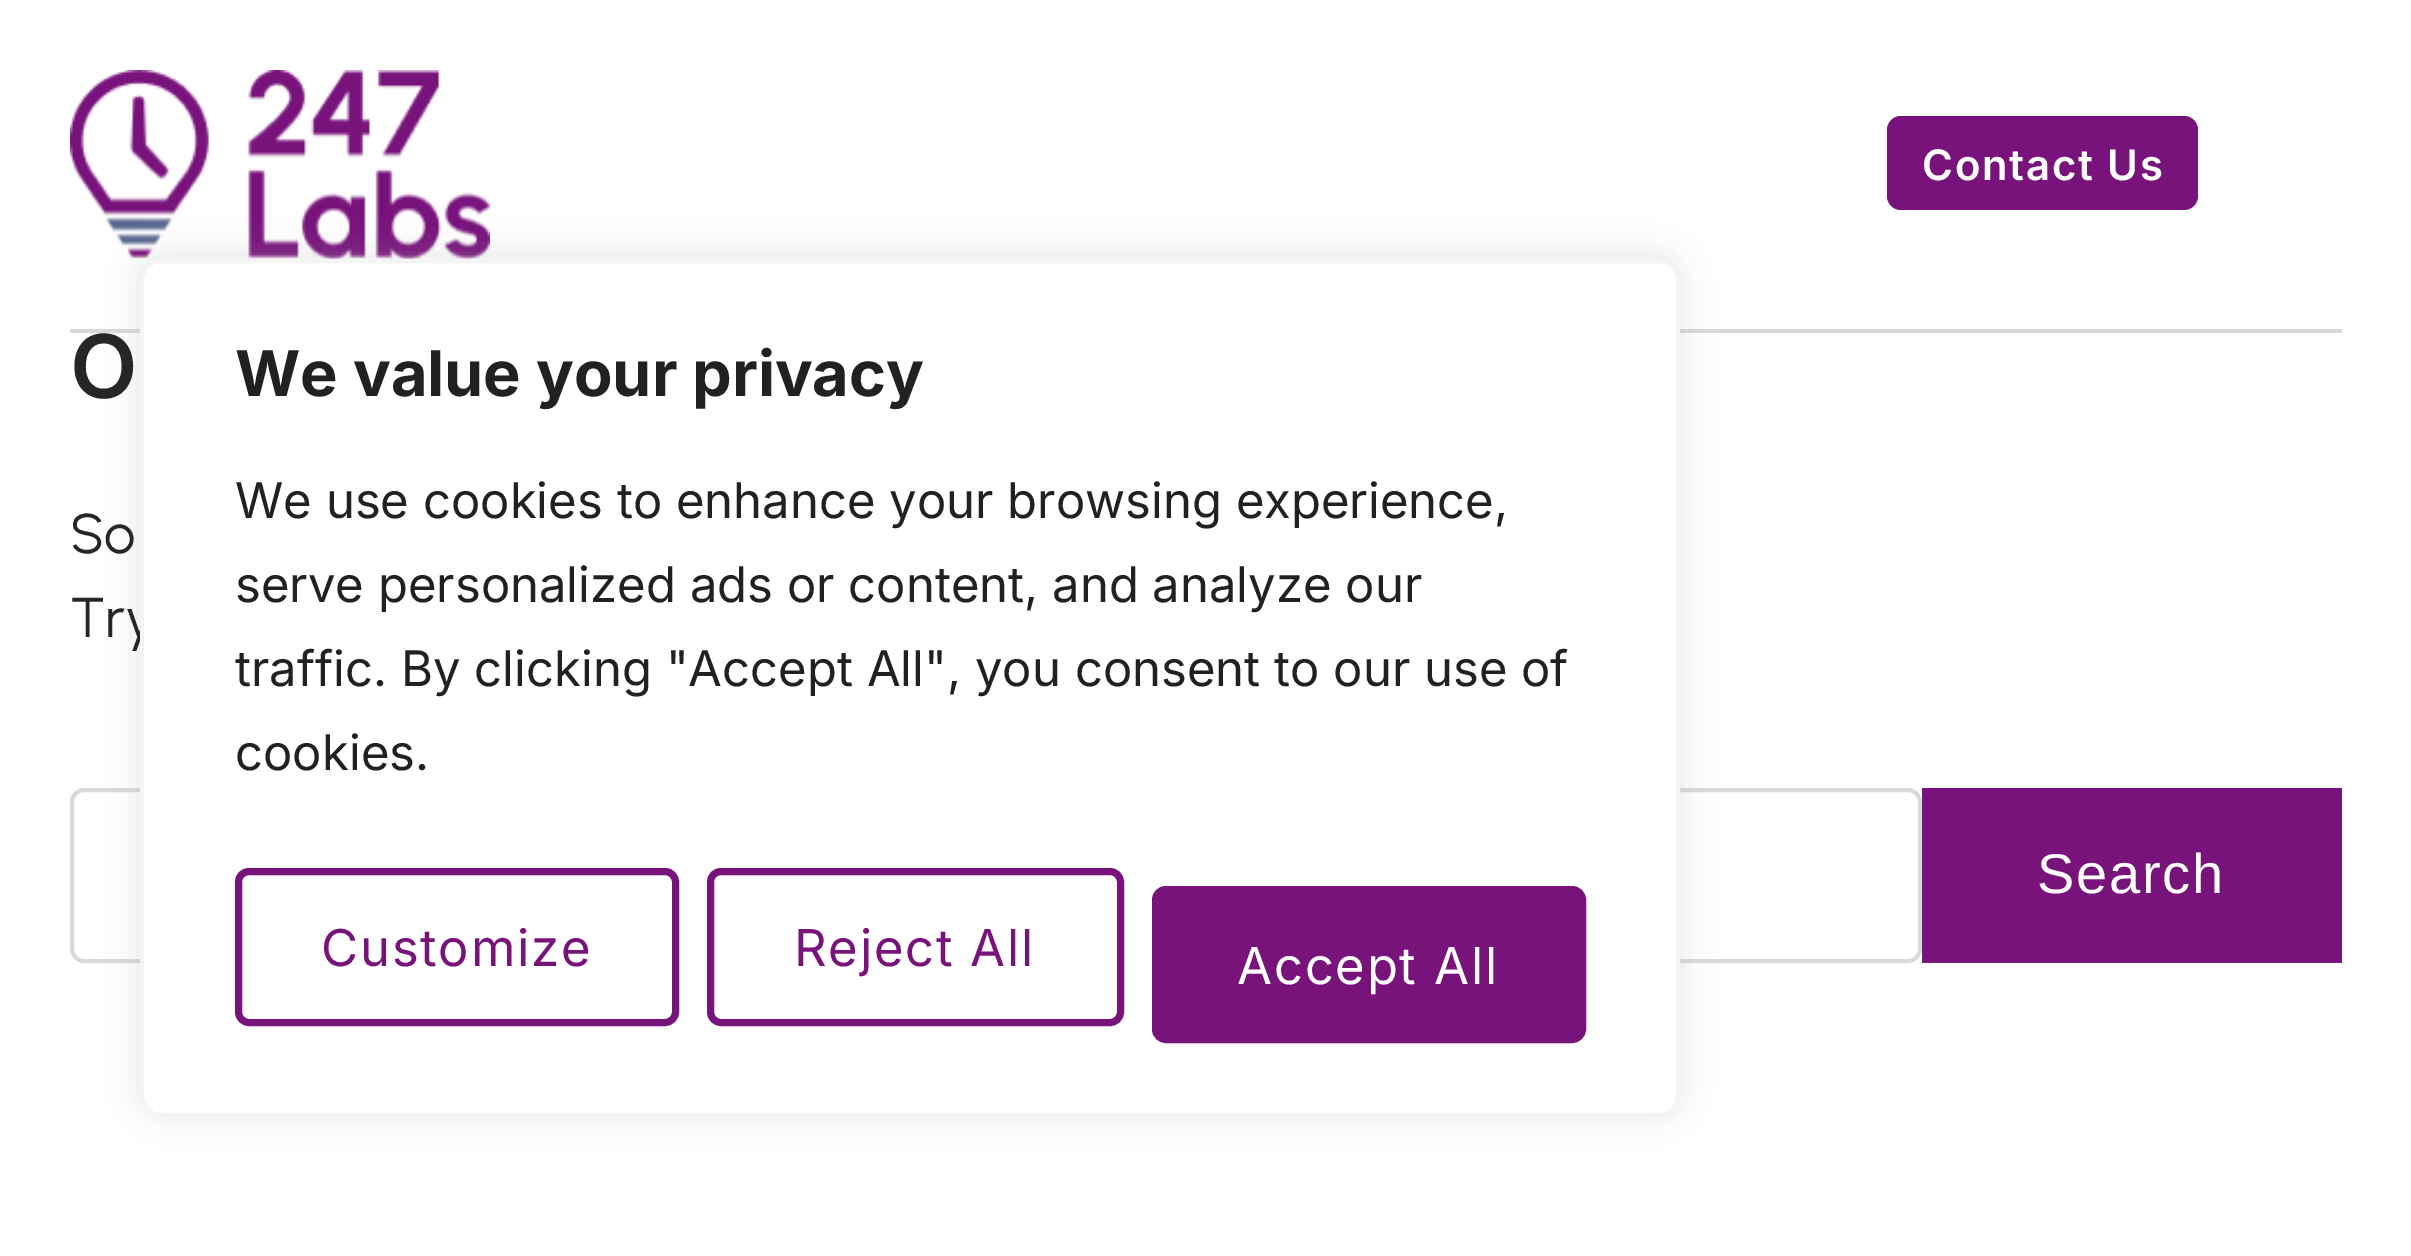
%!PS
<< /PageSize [2411 1256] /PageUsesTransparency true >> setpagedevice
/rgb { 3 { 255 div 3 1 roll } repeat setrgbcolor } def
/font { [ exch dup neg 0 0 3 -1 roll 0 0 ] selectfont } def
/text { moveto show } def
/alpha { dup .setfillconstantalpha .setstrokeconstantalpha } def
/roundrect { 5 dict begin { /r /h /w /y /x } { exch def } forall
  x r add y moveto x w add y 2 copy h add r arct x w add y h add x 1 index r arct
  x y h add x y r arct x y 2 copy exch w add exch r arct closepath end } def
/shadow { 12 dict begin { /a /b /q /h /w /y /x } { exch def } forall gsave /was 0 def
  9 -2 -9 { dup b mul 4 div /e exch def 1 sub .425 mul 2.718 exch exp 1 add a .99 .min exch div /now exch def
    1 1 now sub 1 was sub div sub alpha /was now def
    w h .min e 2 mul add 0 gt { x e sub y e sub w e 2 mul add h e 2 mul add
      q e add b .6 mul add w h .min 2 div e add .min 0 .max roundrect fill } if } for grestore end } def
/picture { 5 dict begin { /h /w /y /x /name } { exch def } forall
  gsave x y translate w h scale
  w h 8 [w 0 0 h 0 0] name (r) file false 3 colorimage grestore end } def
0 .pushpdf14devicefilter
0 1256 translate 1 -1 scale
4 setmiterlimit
255 255 255 rgb
0 0 2411 1256 rectfill
217 217 217 rgb
70 329 70 4 rectfill
(img_01.rgb) 70 70 420 189 picture
1680 329 662 4 rectfill
120 19 124 rgb
1887 116 311 94 14 roundrect fill
217 217 217 rgb
4 setlinewidth
72 790 1848 171 12 roundrect stroke
120 19 124 rgb
1922 788 420 175 rectfill
172 171 171 rgb
140 256 1540 857 21 17.5 0.3 shadow
/Inter-SemiBold 42 font
255 255 255 rgb
1922 180 moveto 1.75 0 (Contact Us) ashow
/Inter-SemiBold 88 font
36 38 39 rgb
(O) 70 398 text
/Urbanist-Regular 56 font
(So) 70 553 text
(Try) 70 637 text
/LiberationSans-Regular 56 font
255 255 255 rgb
2037 893 moveto 1.75 0 (Search) ashow
142 261 1536 854 19 roundrect gsave fill grestore
244 244 244 rgb
stroke
/Inter-Bold 63 font
33 33 33 rgb
(We value your privacy) 235 396 text
/Inter-Regular 49 font
(We use cookies to enhance your browsing experience,) 235 518 text
(serve personalized ads or content, and analyze our) 235 602 text
(traffic. By clicking "Accept All", you consent to our use of) 235 686 text
(cookies.) 235 770 text
120 19 124 rgb
7 setlinewidth
238.5 871.5 437 151 10.5 roundrect stroke
/Inter-Regular 50.75 font
321 966 moveto 1.75 0 (Customize) ashow
710.5 871.5 410 151 10.5 roundrect stroke
794 966 moveto 1.75 0 (Reject All) ashow
1155.5 889.5 427 150 10.5 roundrect gsave fill grestore
stroke
255 255 255 rgb
1237 984 moveto 1.75 0 (Accept All) ashow
.poppdf14devicefilter showpage
